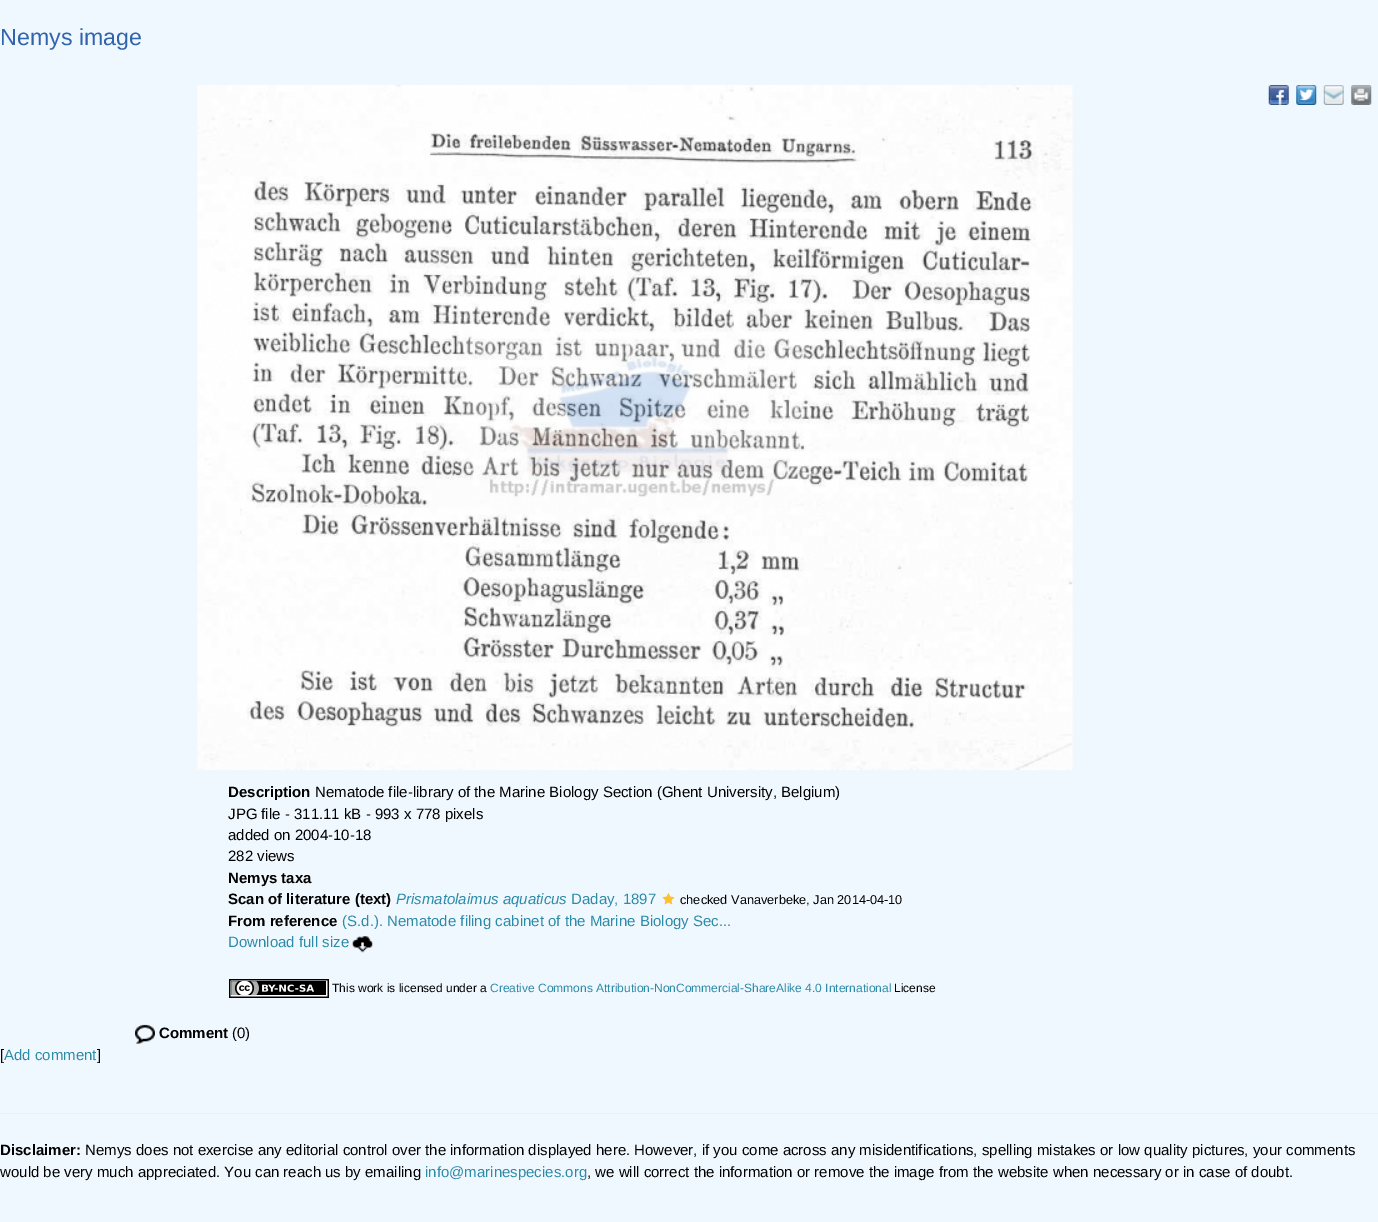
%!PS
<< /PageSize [1378 1222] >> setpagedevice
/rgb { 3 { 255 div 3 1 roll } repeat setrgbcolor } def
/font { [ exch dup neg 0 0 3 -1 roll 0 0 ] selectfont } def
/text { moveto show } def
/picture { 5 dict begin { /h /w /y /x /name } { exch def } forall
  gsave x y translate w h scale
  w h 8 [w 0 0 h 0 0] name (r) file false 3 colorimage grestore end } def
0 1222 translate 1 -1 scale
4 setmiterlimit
240 248 255 rgb
0 0 1378 1222 rectfill
(img_01.rgb) 1268 85 21 20 picture
(img_02.rgb) 1296 85 21 20 picture
(img_03.rgb) 1323 85 21 20 picture
(img_04.rgb) 1351 85 21 20 picture
(img_05.rgb) 197 85 876 685 picture
(img_06.rgb) 662 893 13 12 picture
(img_07.rgb) 352 936 21 17 picture
(img_08.rgb) 229 979 100 19 picture
(img_09.rgb) 135 1024 20 20 picture
238 238 238 rgb
0 1113 1378 1 rectfill
/LiberationSans-Regular 23.25 font
50 100 174 rgb
(Nemys image) 0 45 text
/LiberationSans-Bold 15 font
0 0 0 rgb
(Description) 228 797 text
/LiberationSans-Regular 15 font
(Nematode file-library of the Marine Biology Section \(Ghent University, Belgium\)) 315 797 text
(JPG file - 311.11 kB - 993 x 778 pixels) 228 819 text
(added on 2004-10-18) 228 840 text
(282 views) 228 861 text
/LiberationSans-Bold 15 font
(Nemys taxa) 228 883 text
(Scan of literature \(text\)) 228 904 text
/LiberationSans-Italic 15 font
45 139 168 rgb
(Prismatolaimus aquaticus) 396 904 text
/LiberationSans-Regular 15 font
(Daday, 1897) 571 904 text
/LiberationSans-Regular 12.75 font
0 0 0 rgb
(checked Vanaverbeke, Jan 2014-04-10) 680 904 text
/LiberationSans-Bold 15 font
(From reference) 228 926 text
/LiberationSans-Regular 15 font
45 139 168 rgb
(\(S.d.\). Nematode filing cabinet of the Marine Biology Sec...) 342 926 text
(Download full size) 228 947 text
/LiberationSans-Regular 12 font
0 0 0 rgb
(This work is licensed under a) 332 992 text
45 139 168 rgb
(Creative Commons Attribution-NonCommercial-ShareAlike 4.0 International) 490 992 text
0 0 0 rgb
(License) 894 992 text
/LiberationSans-Bold 15 font
(Comment) 159 1038 text
/LiberationSans-Regular 15 font
(\(0\)) 232 1038 text
([) 0 1060 text
45 139 168 rgb
(Add comment) 4 1060 text
0 0 0 rgb
(]) 97 1060 text
/LiberationSans-Bold 15 font
(Disclaimer:) 0 1155 text
/LiberationSans-Regular 15 font
(Nemys does not exercise any editorial control over the information displayed here. However, if you come across any misidentifications, spelling mistakes or low quality pictures, your comments) 85 1155 text
(would be very much appreciated. You can reach us by emailing) 0 1177 text
45 139 168 rgb
(info@marinespecies.org) 425 1177 text
0 0 0 rgb
(, we will correct the information or remove the image from the website when necessary or in case of doubt.) 587 1177 text
showpage
